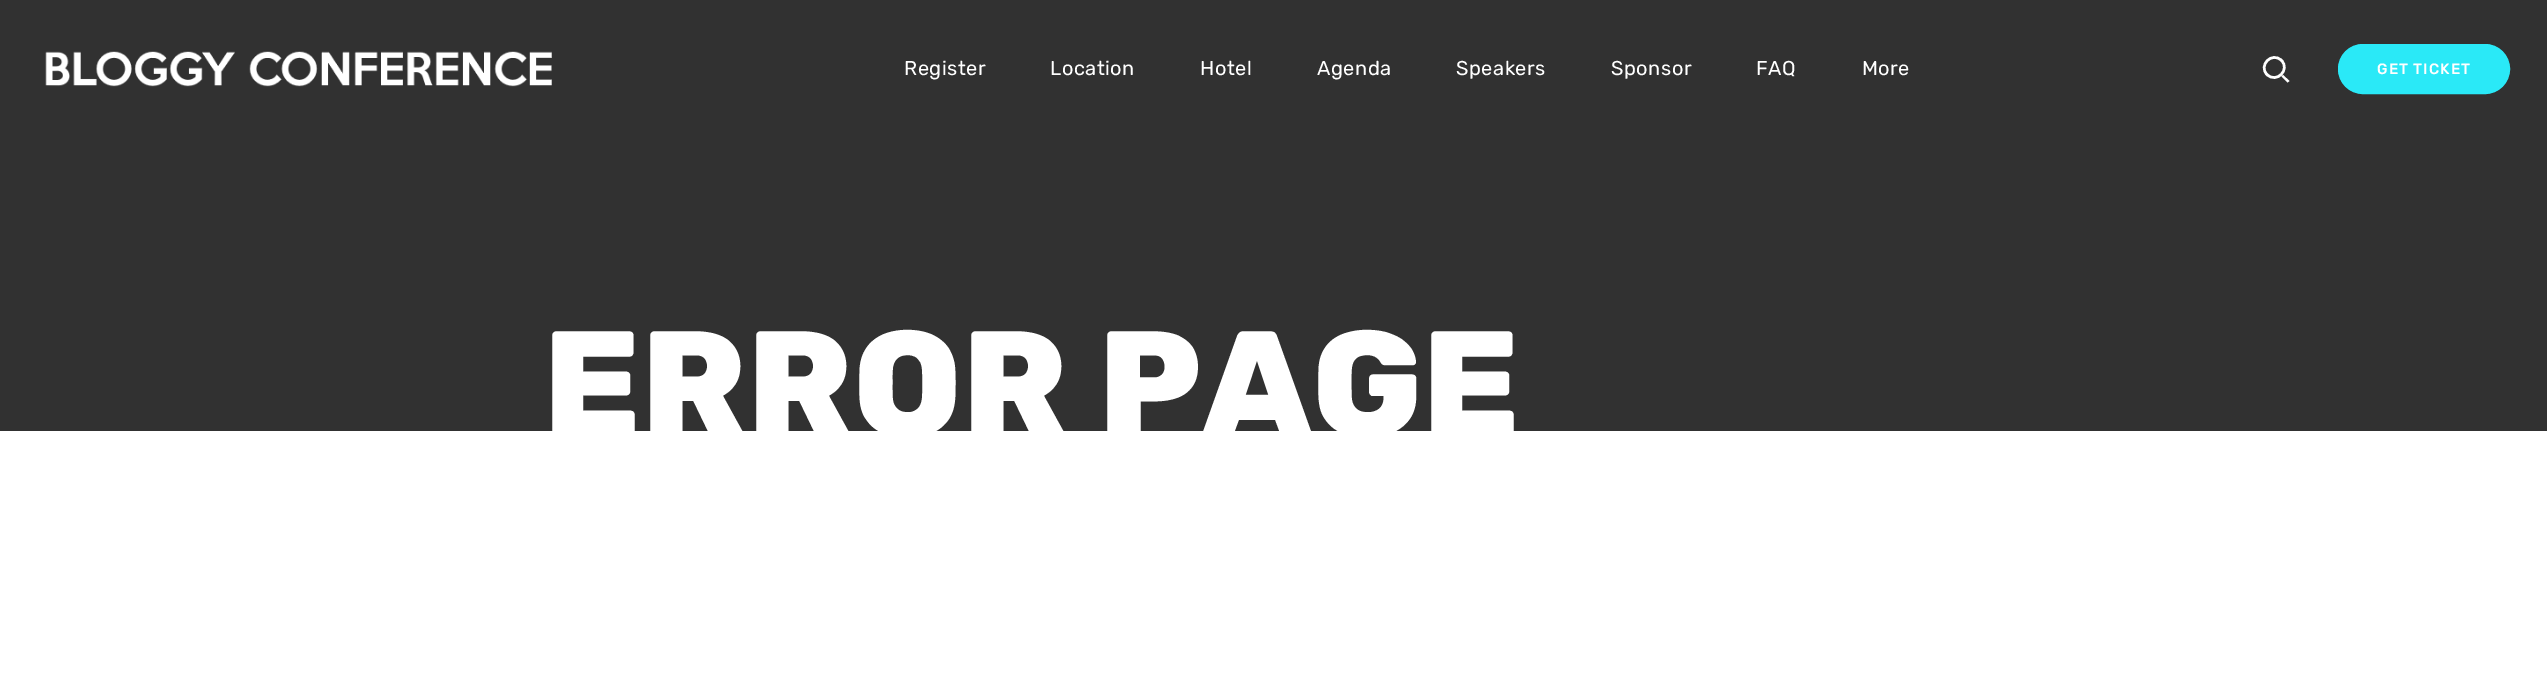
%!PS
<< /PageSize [2547 680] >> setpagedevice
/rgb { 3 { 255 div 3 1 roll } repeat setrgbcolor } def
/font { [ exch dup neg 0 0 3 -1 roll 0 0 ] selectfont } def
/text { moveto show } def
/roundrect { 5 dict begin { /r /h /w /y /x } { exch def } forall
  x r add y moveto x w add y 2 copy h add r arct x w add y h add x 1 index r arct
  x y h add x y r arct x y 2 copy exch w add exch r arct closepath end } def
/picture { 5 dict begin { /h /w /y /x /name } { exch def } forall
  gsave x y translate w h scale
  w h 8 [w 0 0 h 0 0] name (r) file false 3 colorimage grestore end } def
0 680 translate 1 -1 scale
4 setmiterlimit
255 255 255 rgb
0 0 2547 680 rectfill
49 49 49 rgb
0 0 2547 431 rectfill
(img_01.rgb) 45 51 507 36 picture
255 255 255 rgb
2.5 setlinewidth
2281.5 60.5 moveto 9 9 -5 23.5 -14.5 14 rcurveto -9 -9 5 -23.5 14.5 -14 rcurveto closepath stroke
2281.5 76.5 moveto 1.5 -1.5 rlineto 6.5 6 rlineto -2 1.5 rlineto closepath fill
42 233 247 rgb
2338.5 44.5 171 49 24.5 roundrect gsave fill grestore
1 setlinewidth
stroke
/Rubik-Regular 20 font
255 255 255 rgb
904 75 moveto 0.5 0 (Register) ashow
1050 75 moveto 0.5 0 (Location) ashow
1200 75 moveto 0.5 0 (Hotel) ashow
1317 75 moveto 0.5 0 (Agenda) ashow
1456 75 moveto 0.5 0 (Speakers) ashow
1611 75 moveto 0.5 0 (Sponsor) ashow
1756 75 moveto 0.5 0 (FAQ) ashow
1862 75 moveto 0.5 0 (More) ashow
/Rubik-Medium 15 font
2377 74 moveto 1 0 (GET TICKET) ashow
/Rubik-ExtraBold 150 font
(ERROR PAGE) 543 436 text
showpage
